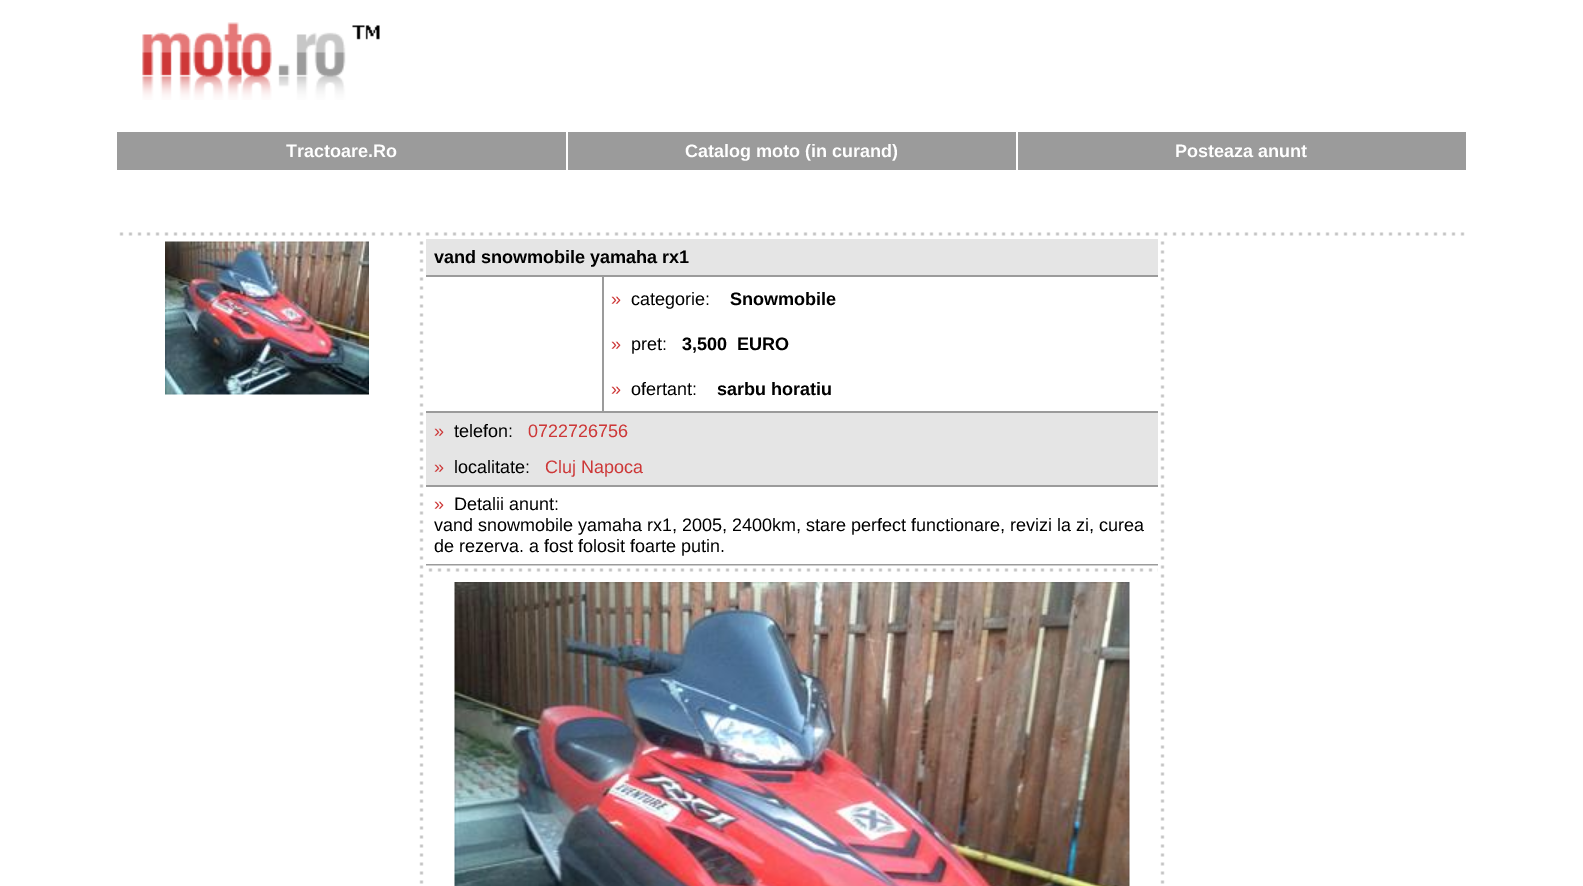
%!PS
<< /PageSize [1583 886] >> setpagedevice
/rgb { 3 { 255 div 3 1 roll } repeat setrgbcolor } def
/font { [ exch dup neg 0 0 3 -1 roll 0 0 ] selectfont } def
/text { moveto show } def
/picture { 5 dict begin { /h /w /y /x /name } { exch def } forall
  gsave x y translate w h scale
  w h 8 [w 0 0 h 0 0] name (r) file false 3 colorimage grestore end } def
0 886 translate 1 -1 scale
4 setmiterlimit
255 255 255 rgb
0 0 1583 886 rectfill
(img_01.rgb) 142 22 238 78 picture
155 155 155 rgb
117 132 1349 38 rectfill
255 255 255 rgb
566 132 2 38 rectfill
1016 132 2 38 rectfill
(img_02.rgb) 119 232 1346 4 picture
(img_03.rgb) 165 241 204 154 picture
(img_04.rgb) 419 241 5 643 picture
229 229 229 rgb
426 239 732 36 rectfill
155 155 155 rgb
426 275 732 2 rectfill
426 411 732 2 rectfill
602 276 2 135 rectfill
229 229 229 rgb
426 413 732 72 rectfill
155 155 155 rgb
426 485 732 2 rectfill
426 564 732 2 rectfill
(img_05.rgb) 426 565 732 7 picture
(img_06.rgb) 454 582 676 304 picture
(img_04.rgb) 1160 241 5 643 picture
/LiberationSans-Bold 18 font
255 255 255 rgb
(Tractoare.Ro) 286 157 text
(Catalog moto \(in curand\)) 685 157 text
(Posteaza anunt) 1175 157 text
0 0 0 rgb
(vand snowmobile yamaha rx1) 434 263 text
/LiberationSans-Regular 18 font
205 55 55 rgb
(») 611 305 text
0 0 0 rgb
(categorie:) 631 305 text
/LiberationSans-Bold 18 font
(Snowmobile) 730 305 text
/LiberationSans-Regular 18 font
205 55 55 rgb
(») 611 350 text
0 0 0 rgb
(pret:) 631 350 text
/LiberationSans-Bold 18 font
(3,500) 682 350 text
(EURO) 737 350 text
/LiberationSans-Regular 18 font
205 55 55 rgb
(») 611 395 text
0 0 0 rgb
(ofertant:) 631 395 text
/LiberationSans-Bold 18 font
(sarbu horatiu) 717 395 text
/LiberationSans-Regular 18 font
205 55 55 rgb
(») 434 437 text
0 0 0 rgb
(telefon:) 454 437 text
205 55 55 rgb
(0722726756) 528 437 text
(») 434 473 text
0 0 0 rgb
(localitate:) 454 473 text
205 55 55 rgb
(Cluj Napoca) 545 473 text
(») 434 510 text
0 0 0 rgb
(Detalii anunt:) 454 510 text
(vand snowmobile yamaha rx1, 2005, 2400km, stare perfect functionare, revizi la zi, curea) 434 531 text
(de rezerva. a fost folosit foarte putin.) 434 552 text
showpage
